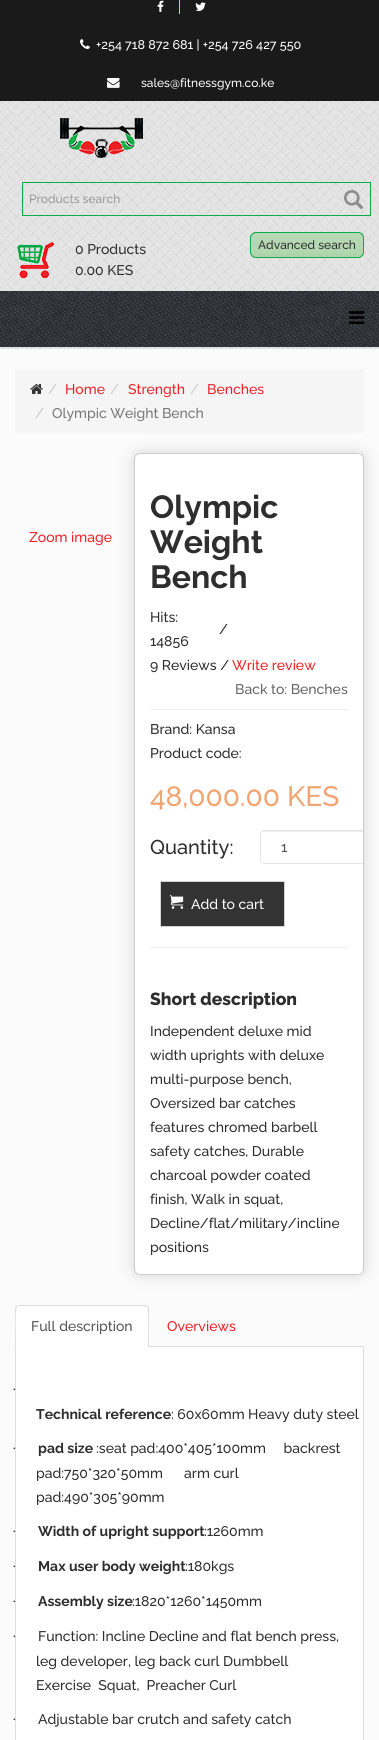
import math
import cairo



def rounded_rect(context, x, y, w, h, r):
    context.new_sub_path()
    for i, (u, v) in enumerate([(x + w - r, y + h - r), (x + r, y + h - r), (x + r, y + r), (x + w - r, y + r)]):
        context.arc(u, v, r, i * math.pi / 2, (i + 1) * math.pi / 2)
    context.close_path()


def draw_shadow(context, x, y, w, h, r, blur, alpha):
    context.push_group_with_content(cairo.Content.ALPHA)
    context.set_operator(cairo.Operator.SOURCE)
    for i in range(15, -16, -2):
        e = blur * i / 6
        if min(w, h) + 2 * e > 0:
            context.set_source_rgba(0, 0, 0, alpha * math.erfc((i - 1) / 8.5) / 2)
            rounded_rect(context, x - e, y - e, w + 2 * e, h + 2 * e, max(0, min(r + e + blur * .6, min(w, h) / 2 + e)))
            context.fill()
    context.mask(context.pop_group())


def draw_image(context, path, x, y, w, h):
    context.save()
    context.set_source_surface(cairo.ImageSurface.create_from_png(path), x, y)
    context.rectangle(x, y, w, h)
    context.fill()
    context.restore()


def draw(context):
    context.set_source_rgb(251 / 255, 251 / 255, 251 / 255)
    context.paint()
    context.set_source_rgb(26 / 255, 26 / 255, 26 / 255)
    context.rectangle(0, 0, 379, 101)
    context.fill()
    context.set_source_rgb(174 / 255, 212 / 255, 171 / 255)
    context.rectangle(179, 0, 1, 14)
    context.fill()
    draw_image(context, "images/1.png", 157, 0, 7, 12)
    draw_image(context, "images/2.png", 195, 2, 11, 9)
    draw_image(context, "images/3.png", 80, 39, 10, 10)
    draw_image(context, "images/4.png", 107, 78, 13, 10)
    draw_image(context, "images/5.png", 0, 101, 379, 189)
    draw_image(context, "images/6.png", 60, 118, 83, 40)
    draw_image(context, "images/7.png", 344, 190, 19, 19)
    context.rectangle(22.5, 182.5, 348, 33)
    context.set_source_rgb(13 / 255, 169 / 255, 74 / 255)
    context.set_line_width(1)
    context.stroke()
    context.set_source_rgb(174 / 255, 212 / 255, 171 / 255)
    rounded_rect(context, 250, 232, 114, 26, 6)
    context.fill()
    draw_image(context, "images/8.png", 250, 233, 114, 20)
    rounded_rect(context, 250.5, 232.5, 113, 25, 5.5)
    context.set_source_rgb(13 / 255, 169 / 255, 74 / 255)
    context.stroke()
    draw_image(context, "images/9.png", 17, 242, 37, 36)
    draw_image(context, "images/10.png", 0, 291, 379, 56)
    context.set_source_rgb(225 / 255, 225 / 255, 225 / 255)
    context.rectangle(0, 290, 379, 1)
    context.fill()
    context.rectangle(0, 347, 379, 2)
    context.fill()
    draw_image(context, "images/11.png", 349, 311, 16, 13)
    context.set_source_rgb(245 / 255, 245 / 255, 245 / 255)
    context.rectangle(15, 369, 349, 64)
    context.fill()
    draw_image(context, "images/12.png", 30, 384, 13, 10)
    context.set_source_rgb(214 / 255, 214 / 255, 214 / 255)
    draw_shadow(context, 134, 453, 230, 822, 6, 7.5, 1)
    context.set_source_rgb(1, 1, 1)
    rounded_rect(context, 134.5, 453.5, 229, 821, 5.5)
    context.fill_preserve()
    context.set_source_rgb(204 / 255, 204 / 255, 204 / 255)
    context.stroke()
    context.set_source_rgb(238 / 255, 238 / 255, 238 / 255)
    context.rectangle(150, 709, 198, 1)
    context.fill()
    context.rectangle(150, 947, 198, 1)
    context.fill()
    context.set_source_rgb(236 / 255, 236 / 255, 236 / 255)
    context.new_path()
    context.move_to(264, 831)
    context.curve_to(262, 831, 261, 833, 261, 835)
    context.curve_to(261, 833, 262, 832, 264, 832)
    context.line_to(363, 832)
    context.line_to(363, 831)
    context.close_path()
    context.fill()
    context.set_source_rgb(230 / 255, 230 / 255, 230 / 255)
    context.new_path()
    context.move_to(264, 830)
    context.curve_to(262, 830, 260, 832, 260, 834)
    context.line_to(260, 860)
    context.curve_to(260, 862, 262, 864, 264, 864)
    context.line_to(363, 864)
    context.line_to(363, 863)
    context.line_to(264, 863)
    context.curve_to(262, 863, 261, 862, 261, 860)
    context.line_to(261, 834)
    context.curve_to(261, 832, 262, 831, 264, 831)
    context.line_to(363, 831)
    context.line_to(363, 830)
    context.close_path()
    context.fill()
    context.set_source_rgb(51 / 255, 51 / 255, 51 / 255)
    context.rectangle(160.5, 881.5, 124, 45)
    context.fill_preserve()
    context.set_source_rgb(213 / 255, 213 / 255, 213 / 255)
    context.stroke()
    draw_image(context, "images/13.png", 170, 894, 14, 15)
    context.set_source_rgb(221 / 255, 221 / 255, 221 / 255)
    context.rectangle(149, 1346, 215, 1)
    context.fill()
    context.set_source_rgb(1, 1, 1)
    context.new_path()
    context.move_to(19, 1305)
    context.line_to(145, 1305)
    context.curve_to(147, 1305, 149, 1307, 149, 1309)
    context.line_to(149, 1347)
    context.line_to(15, 1347)
    context.line_to(15, 1309)
    context.curve_to(15, 1307, 17, 1305, 19, 1305)
    context.close_path()
    context.fill()
    context.set_source_rgb(221 / 255, 221 / 255, 221 / 255)
    context.new_path()
    context.move_to(19, 1305)
    context.line_to(16, 1306)
    context.line_to(17, 1307)
    context.line_to(19, 1306)
    context.line_to(145, 1306)
    context.line_to(147, 1307)
    context.line_to(148, 1306)
    context.line_to(145, 1305)
    context.close_path()
    context.fill()
    context.new_path()
    context.move_to(149, 1347)
    context.line_to(149, 1309)
    context.curve_to(149, 1308, 148, 1307, 148, 1306)
    context.line_to(147, 1307)
    context.curve_to(149, 1309, 148, 1341, 148, 1346)
    context.close_path()
    context.fill()
    context.new_path()
    context.move_to(15, 1347)
    context.line_to(16, 1346)
    context.curve_to(16, 1341, 15, 1309, 17, 1307)
    context.line_to(16, 1306)
    context.line_to(15, 1309)
    context.close_path()
    context.fill()
    context.set_source_rgb(1, 1, 1)
    context.rectangle(16, 1347, 347, 393)
    context.fill()
    context.set_source_rgb(221 / 255, 221 / 255, 221 / 255)
    context.rectangle(363, 1347, 1, 393)
    context.fill()
    context.rectangle(15, 1347, 1, 393)
    context.fill()
    context.select_font_face("Raleway Medium")
    context.set_font_size(12.6)
    context.set_source_rgb(1, 1, 1)
    context.move_to(96, 49)
    context.show_text("+254 718 872 681 | +254 726 427 550")
    context.set_font_size(12)
    context.move_to(141, 87)
    context.show_text("sales@fitnessgym.co.ke")
    context.set_source_rgb(153 / 255, 153 / 255, 153 / 255)
    context.move_to(29, 203)
    context.show_text("Products search")
    context.set_source_rgb(46 / 255, 46 / 255, 46 / 255)
    context.move_to(258, 249)
    context.show_text("Advanced search")
    context.set_font_size(14)
    context.move_to(75, 254)
    context.show_text("0 Products")
    context.move_to(75, 275)
    context.show_text("0.00 KES")
    context.set_source_rgb(204 / 255, 204 / 255, 204 / 255)
    context.move_to(48, 394)
    context.show_text("/")
    context.set_source_rgb(237 / 255, 34 / 255, 39 / 255)
    context.move_to(65, 394)
    context.show_text("Home")
    context.set_source_rgb(204 / 255, 204 / 255, 204 / 255)
    context.move_to(110, 394)
    context.show_text("/")
    context.set_source_rgb(237 / 255, 34 / 255, 39 / 255)
    context.move_to(128, 394)
    context.show_text("Strength")
    context.set_source_rgb(204 / 255, 204 / 255, 204 / 255)
    context.move_to(190, 394)
    context.show_text("/")
    context.set_source_rgb(237 / 255, 34 / 255, 39 / 255)
    context.move_to(207, 394)
    context.show_text("Benches")
    context.set_source_rgb(204 / 255, 204 / 255, 204 / 255)
    context.move_to(35, 418)
    context.show_text("/")
    context.set_source_rgb(119 / 255, 119 / 255, 119 / 255)
    context.move_to(52, 418)
    context.show_text("Olympic Weight Bench")
    context.set_source_rgb(237 / 255, 34 / 255, 39 / 255)
    context.move_to(29, 542)
    context.show_text("Zoom image")
    context.select_font_face("Raleway", cairo.FontSlant.NORMAL, cairo.FontWeight.BOLD)
    context.set_font_size(32)
    context.set_source_rgb(46 / 255, 46 / 255, 46 / 255)
    context.move_to(150, 518)
    context.show_text("Olympic")
    context.move_to(150, 553)
    context.show_text("Weight")
    context.move_to(150, 588)
    context.show_text("Bench")
    context.select_font_face("Raleway Medium")
    context.set_font_size(14)
    context.move_to(150, 622)
    context.show_text("Hits:")
    context.move_to(150, 646)
    context.show_text("14856")
    context.move_to(219, 634)
    context.show_text("/")
    context.move_to(150, 670)
    context.show_text("9 Reviews /")
    context.set_source_rgb(237 / 255, 34 / 255, 39 / 255)
    context.move_to(232, 670)
    context.show_text("Write review")
    context.set_source_rgb(102 / 255, 102 / 255, 102 / 255)
    context.move_to(235, 694)
    context.show_text("Back to: Benches")
    context.set_source_rgb(46 / 255, 46 / 255, 46 / 255)
    context.move_to(150, 734)
    context.show_text("Brand: Kansa")
    context.move_to(150, 758)
    context.show_text("Product code:")
    context.set_font_size(28)
    context.set_source_rgb(243 / 255, 164 / 255, 115 / 255)
    context.move_to(150, 806)
    context.show_text("48,000.00 KES")
    context.set_font_size(20)
    context.set_source_rgb(46 / 255, 46 / 255, 46 / 255)
    context.move_to(150, 854)
    context.show_text("Quantity:")
    context.set_font_size(14)
    context.set_source_rgb(85 / 255, 85 / 255, 85 / 255)
    context.move_to(281, 852)
    context.show_text("1")
    context.set_source_rgb(1, 1, 1)
    context.move_to(191, 909)
    context.show_text("Add to cart")
    context.select_font_face("Raleway ExtraBold")
    context.set_font_size(17.5)
    context.set_source_rgb(46 / 255, 46 / 255, 46 / 255)
    context.move_to(150, 1005)
    context.show_text("Short description")
    context.select_font_face("Raleway Medium")
    context.set_font_size(14)
    context.move_to(150, 1036)
    context.show_text("Independent deluxe mid")
    context.move_to(150, 1060)
    context.show_text("width uprights with deluxe")
    context.move_to(150, 1084)
    context.show_text("multi-purpose bench,")
    context.move_to(150, 1108)
    context.show_text("Oversized bar catches")
    context.move_to(150, 1132)
    context.show_text("features chromed barbell")
    context.move_to(150, 1156)
    context.show_text("safety catches, Durable")
    context.move_to(150, 1180)
    context.show_text("charcoal powder coated")
    context.move_to(150, 1204)
    context.show_text("finish, Walk in squat,")
    context.move_to(150, 1228)
    context.show_text("Decline/flat/military/incline")
    context.move_to(150, 1252)
    context.show_text("positions")
    context.set_source_rgb(85 / 255, 85 / 255, 85 / 255)
    context.move_to(31, 1331)
    context.show_text("Full description")
    context.set_source_rgb(237 / 255, 34 / 255, 39 / 255)
    context.move_to(167, 1331)
    context.show_text("Overviews")
    context.select_font_face("Liberation Serif")
    context.set_source_rgb(46 / 255, 46 / 255, 46 / 255)
    context.move_to(12, 1394)
    context.show_text("·")
    context.select_font_face("Raleway", cairo.FontSlant.NORMAL, cairo.FontWeight.BOLD)
    context.move_to(36, 1419)
    context.show_text("Technical reference")
    context.select_font_face("Raleway Medium")
    context.move_to(171, 1419)
    context.show_text(": 60x60mm Heavy duty steel")
    context.select_font_face("Liberation Serif")
    context.move_to(12, 1453)
    context.show_text("·")
    context.select_font_face("Raleway", cairo.FontSlant.NORMAL, cairo.FontWeight.BOLD)
    context.move_to(38, 1453)
    context.show_text("pad size")
    context.select_font_face("Raleway Medium")
    context.move_to(96, 1453)
    context.show_text(":seat pad:400*405*100mm     backrest")
    context.move_to(36, 1478)
    context.show_text("pad:750*320*50mm      arm curl")
    context.move_to(36, 1502)
    context.show_text("pad:490*305*90mm")
    context.select_font_face("Liberation Serif")
    context.move_to(12, 1536)
    context.show_text("·")
    context.select_font_face("Raleway", cairo.FontSlant.NORMAL, cairo.FontWeight.BOLD)
    context.move_to(38, 1536)
    context.show_text("Width of upright support")
    context.select_font_face("Raleway Medium")
    context.move_to(204, 1536)
    context.show_text(":1260mm")
    context.select_font_face("Liberation Serif")
    context.move_to(12, 1571)
    context.show_text("·")
    context.select_font_face("Raleway", cairo.FontSlant.NORMAL, cairo.FontWeight.BOLD)
    context.move_to(38, 1571)
    context.show_text("Max user body weight")
    context.select_font_face("Raleway Medium")
    context.move_to(185, 1571)
    context.show_text(":180kgs")
    context.select_font_face("Liberation Serif")
    context.move_to(12, 1606)
    context.show_text("·")
    context.select_font_face("Raleway", cairo.FontSlant.NORMAL, cairo.FontWeight.BOLD)
    context.move_to(38, 1606)
    context.show_text("Assembly size")
    context.select_font_face("Raleway Medium")
    context.move_to(132, 1606)
    context.show_text(":1820*1260*1450mm")
    context.select_font_face("Liberation Serif")
    context.move_to(12, 1641)
    context.show_text("·")
    context.select_font_face("Raleway Medium")
    context.move_to(38, 1641)
    context.show_text("Function: Incline Decline and flat bench press,")
    context.move_to(36, 1666)
    context.show_text("leg developer, leg back curl Dumbbell")
    context.move_to(36, 1690)
    context.show_text("Exercise  Squat,  Preacher Curl")
    context.select_font_face("Liberation Serif")
    context.move_to(12, 1724)
    context.show_text("·")
    context.select_font_face("Raleway Medium")
    context.move_to(38, 1724)
    context.show_text("Adjustable bar crutch and safety catch")


surface = cairo.ImageSurface(cairo.Format.RGB24, 379, 1740)
context = cairo.Context(surface)
options = cairo.FontOptions()
options.set_hint_metrics(cairo.HintMetrics.OFF)
options.set_hint_style(cairo.HintStyle.NONE)
context.set_font_options(options)
context.set_miter_limit(4)
draw(context)
surface.write_to_png("out.png")
